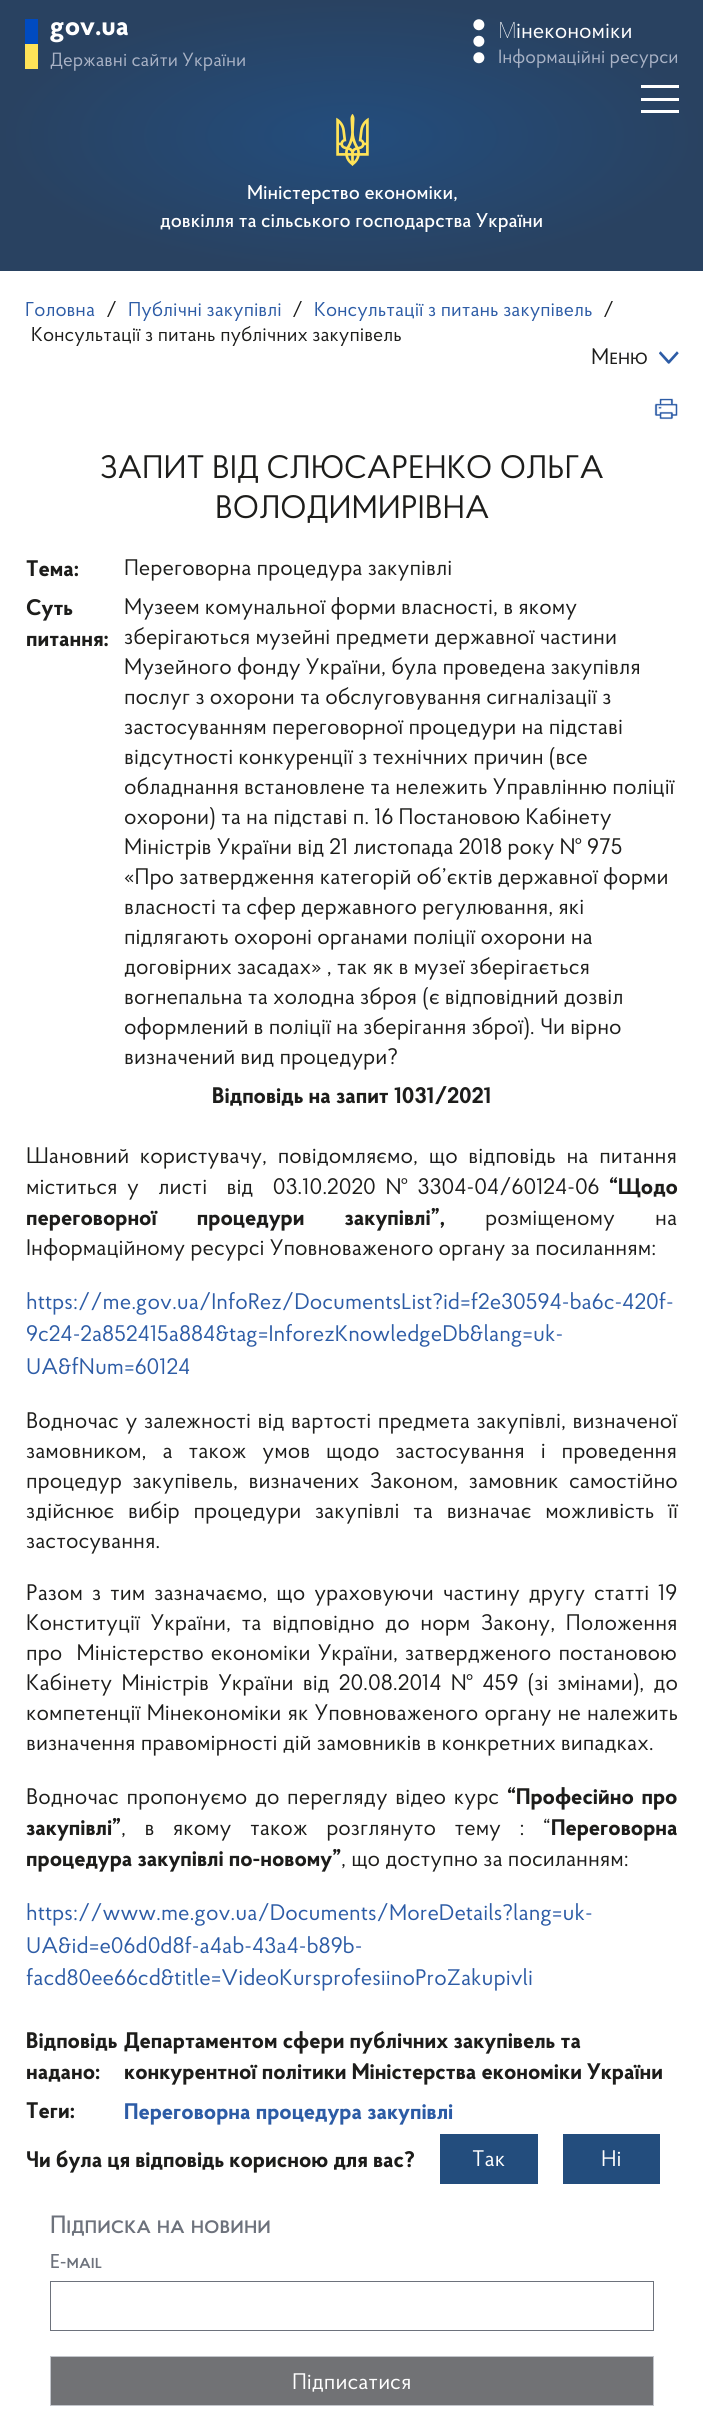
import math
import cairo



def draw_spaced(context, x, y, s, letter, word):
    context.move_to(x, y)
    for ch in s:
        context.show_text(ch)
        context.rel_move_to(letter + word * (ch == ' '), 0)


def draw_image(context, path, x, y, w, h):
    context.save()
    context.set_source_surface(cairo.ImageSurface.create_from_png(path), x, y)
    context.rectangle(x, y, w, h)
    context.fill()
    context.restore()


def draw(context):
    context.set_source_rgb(1, 1, 1)
    context.paint()
    gradient = cairo.RadialGradient(0, 0, 0, 0, 0, 1)
    gradient.set_matrix(cairo.Matrix(1 / 352, 0, 0, 1 / 136, -1 * 352 / 352, -1 * 136 / 136))
    gradient.add_color_stop_rgba(0, 35 / 255, 77 / 255, 125 / 255, 1)
    gradient.add_color_stop_rgba(1, 41 / 255, 66 / 255, 97 / 255, 1)
    context.set_source(gradient)
    context.rectangle(0, 0, 703, 271)
    context.fill()
    context.set_source_rgb(0, 75 / 255, 193 / 255)
    context.rectangle(25, 19, 13, 25)
    context.fill()
    context.set_source_rgb(1, 227 / 255, 88 / 255)
    context.rectangle(25, 44, 13, 25)
    context.fill()
    draw_image(context, "images/1.png", 473, 19, 12, 45)
    context.set_source_rgb(1, 1, 1)
    context.rectangle(641, 85, 38, 3)
    context.fill()
    context.rectangle(641, 98, 38, 3)
    context.fill()
    context.rectangle(641, 110, 38, 3)
    context.fill()
    draw_image(context, "images/2.png", 336, 114, 33, 52)
    draw_image(context, "images/3.png", 659, 351, 20, 13)
    draw_image(context, "images/4.png", 654, 398, 24, 22)
    context.set_source_rgb(35 / 255, 77 / 255, 125 / 255)
    context.rectangle(440, 2134, 98, 50)
    context.fill()
    context.rectangle(563, 2134, 97, 50)
    context.fill()
    context.rectangle(50.5, 2281.5, 603, 49)
    context.set_source_rgb(109 / 255, 114 / 255, 124 / 255)
    context.set_line_width(1)
    context.stroke()
    context.set_source_rgb(113 / 255, 114 / 255, 117 / 255)
    context.rectangle(50.5, 2356.5, 603, 49)
    context.fill_preserve()
    context.set_source_rgb(194 / 255, 197 / 255, 203 / 255)
    context.stroke()
    context.select_font_face("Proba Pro", cairo.FontSlant.NORMAL, cairo.FontWeight.BOLD)
    context.set_font_size(28)
    context.set_source_rgb(1, 1, 1)
    context.move_to(50, 35)
    context.show_text("gov.ua")
    context.select_font_face("Proba Pro")
    context.set_font_size(19.1)
    context.set_source_rgb(170 / 255, 179 / 255, 198 / 255)
    context.move_to(50, 66)
    context.show_text("Державні сайти України")
    context.select_font_face("Noto Sans Thin")
    context.set_font_size(22.5)
    context.set_source_rgb(1, 1, 1)
    context.move_to(498, 38)
    context.show_text("М")
    context.select_font_face("Proba Pro")
    context.move_to(516, 38)
    context.show_text("інекономіки")
    context.set_font_size(19.1)
    context.set_source_rgb(170 / 255, 179 / 255, 198 / 255)
    context.move_to(498, 63)
    context.show_text("Інформаційні ресурси")
    context.select_font_face("Proba Pro Medium")
    context.set_font_size(20)
    context.set_source_rgb(1, 1, 1)
    context.move_to(247, 199)
    context.show_text("Міністерство економіки,")
    context.move_to(160, 227)
    context.show_text("довкілля та сільського господарства України")
    context.select_font_face("Proba Pro")
    context.set_source_rgb(45 / 255, 92 / 255, 166 / 255)
    context.move_to(25, 316)
    context.show_text("Головна")
    context.set_source_rgb(29 / 255, 29 / 255, 27 / 255)
    context.move_to(106, 316)
    context.show_text("/")
    context.set_source_rgb(45 / 255, 92 / 255, 166 / 255)
    context.move_to(128, 316)
    context.show_text("Публічні закупівлі")
    context.set_source_rgb(29 / 255, 29 / 255, 27 / 255)
    context.move_to(292, 316)
    context.show_text("/")
    context.set_source_rgb(45 / 255, 92 / 255, 166 / 255)
    context.move_to(314, 316)
    context.show_text("Консультації з питань закупівель")
    context.set_source_rgb(29 / 255, 29 / 255, 27 / 255)
    context.move_to(603, 316)
    context.show_text("/")
    context.move_to(31, 341)
    context.show_text("Консультації з питань публічних закупівель")
    context.select_font_face("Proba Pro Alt")
    context.set_font_size(22.5)
    context.move_to(591, 364)
    context.show_text("Меню")
    context.select_font_face("Proba Pro")
    context.set_font_size(32.5)
    context.move_to(100, 478)
    context.show_text("ЗАПИТ ВІД СЛЮСАРЕНКО ОЛЬГА")
    context.move_to(215, 518)
    context.show_text("ВОЛОДИМИРІВНА")
    context.select_font_face("Proba Pro", cairo.FontSlant.NORMAL, cairo.FontWeight.BOLD)
    context.set_font_size(22.5)
    context.move_to(26, 576)
    context.show_text("Тема:")
    context.select_font_face("Proba Pro")
    context.move_to(124, 575)
    context.show_text("Переговорна процедура закупівлі")
    context.select_font_face("Proba Pro", cairo.FontSlant.NORMAL, cairo.FontWeight.BOLD)
    context.move_to(26, 615)
    context.show_text("Суть")
    context.move_to(26, 646)
    context.show_text("питання:")
    context.select_font_face("Proba Pro")
    context.move_to(124, 614)
    context.show_text("Музеем комунальної форми власності, в якому")
    context.move_to(124, 644)
    context.show_text("зберігаються музейні предмети державної частини")
    context.move_to(124, 674)
    context.show_text("Музейного фонду України, була проведена закупівля")
    context.move_to(124, 704)
    context.show_text("послуг з охорони та обслуговування сигналізації з")
    context.move_to(124, 734)
    context.show_text("застосуванням переговорної процедури на підставі")
    context.move_to(124, 764)
    context.show_text("відсутності конкуренції з технічних причин (все")
    context.move_to(124, 794)
    context.show_text("обладнання встановлене та нележить Управлінню поліції")
    context.move_to(124, 824)
    context.show_text("охорони) та на підставі п. 16 Постановою Кабінету")
    context.move_to(124, 854)
    context.show_text("Міністрів України від 21 листопада 2018 року № 975")
    context.move_to(124, 884)
    context.show_text("«Про затвердження категорій об’єктів державної форми")
    context.move_to(124, 914)
    context.show_text("власності та сфер державного регулювання, які")
    context.move_to(124, 944)
    context.show_text("підлягають охороні органами поліції охорони на")
    context.move_to(124, 974)
    context.show_text("договірних засадах» , так як в музеї зберігається")
    context.move_to(124, 1004)
    context.show_text("вогнепальна та холодна зброя (є відповідний дозвіл")
    context.move_to(124, 1034)
    context.show_text("оформлений в поліції на зберігання зброї). Чи вірно")
    context.move_to(124, 1064)
    context.show_text("визначений вид процедури?")
    context.select_font_face("Proba Pro", cairo.FontSlant.NORMAL, cairo.FontWeight.BOLD)
    context.move_to(212, 1103)
    context.show_text("Відповідь на запит 1031/2021")
    context.select_font_face("Proba Pro")
    draw_spaced(context, 26, 1163, "Шановний користувачу, повідомляємо, що відповідь на питання", 0, 5.5)
    draw_spaced(context, 26, 1194, "міститься у  листі  від  03.10.2020 № 3304-04/60124-06", 0, 4.5)
    context.select_font_face("Proba Pro", cairo.FontSlant.NORMAL, cairo.FontWeight.BOLD)
    context.move_to(609, 1194)
    context.show_text("“Щодо")
    draw_spaced(context, 26, 1225, "переговорної процедури закупівлі”,", 0, 35)
    context.select_font_face("Proba Pro")
    draw_spaced(context, 485, 1225, "розміщеному на", 0, 35)
    context.move_to(26, 1255)
    context.show_text("Інформаційному ресурсі Уповноваженого органу за посиланням:")
    context.set_source_rgb(45 / 255, 92 / 255, 166 / 255)
    context.move_to(26, 1309)
    context.show_text("https://me.gov.ua/InfoRez/DocumentsList?id=f2e30594-ba6c-420f-")
    context.move_to(26, 1341)
    context.show_text("9c24-2a852415a884&tag=InforezKnowledgeDb&lang=uk-")
    context.move_to(26, 1374)
    context.show_text("UA&fNum=60124")
    context.set_source_rgb(29 / 255, 29 / 255, 27 / 255)
    draw_spaced(context, 26, 1428, "Водночас у залежності від вартості предмета закупівлі, визначеної", 0, 1.5)
    draw_spaced(context, 26, 1458, "замовником, а також умов щодо застосування і проведення", 0, 10.75)
    draw_spaced(context, 26, 1488, "процедур закупівель, визначених Законом, замовник самостійно", 0, 5.5)
    draw_spaced(context, 26, 1518, "здійснює вибір процедури закупівлі та визначає можливість її", 0, 8.5)
    context.move_to(26, 1548)
    context.show_text("застосування.")
    draw_spaced(context, 26, 1600, "Разом з тим зазначаємо, що ураховуючи частину другу статті 19", 0, 3.75)
    draw_spaced(context, 26, 1630, "Конституції України, та відповідно до норм Закону, Положення", 0, 5.5)
    draw_spaced(context, 26, 1660, "про  Міністерство економіки України, затвердженого постановою", 0, 2)
    draw_spaced(context, 26, 1690, "Кабінету Міністрів України від 20.08.2014 № 459 (зі змінами), до", 0, 4)
    draw_spaced(context, 26, 1720, "компетенції Мінекономіки як Уповноваженого органу не належить", 0, 1)
    context.move_to(26, 1750)
    context.show_text("визначення правомірності дій замовників в конкретних випадках.")
    draw_spaced(context, 26, 1804, "Водночас пропонуємо до перегляду відео курс", 0, 2.5)
    context.select_font_face("Proba Pro", cairo.FontSlant.NORMAL, cairo.FontWeight.BOLD)
    draw_spaced(context, 507, 1804, "“Професійно про", 0, 2.5)
    context.move_to(26, 1835)
    context.show_text("закупівлі”")
    context.select_font_face("Proba Pro")
    draw_spaced(context, 121, 1835, ", в якому також розглянуто тему : “", 0, 13.25)
    context.select_font_face("Proba Pro", cairo.FontSlant.NORMAL, cairo.FontWeight.BOLD)
    context.move_to(551, 1835)
    context.show_text("Переговорна")
    context.move_to(26, 1866)
    context.show_text("процедура закупівлі по-новому”")
    context.select_font_face("Proba Pro")
    context.move_to(341, 1866)
    context.show_text(", що доступно за посиланням:")
    context.set_source_rgb(45 / 255, 92 / 255, 166 / 255)
    context.move_to(26, 1920)
    context.show_text("https://www.me.gov.ua/Documents/MoreDetails?lang=uk-")
    context.move_to(26, 1953)
    context.show_text("UA&id=e06d0d8f-a4ab-43a4-b89b-")
    context.move_to(26, 1985)
    context.show_text("facd80ee66cd&title=VideoKursprofesiinoProZakupivli")
    context.select_font_face("Proba Pro", cairo.FontSlant.NORMAL, cairo.FontWeight.BOLD)
    context.set_source_rgb(29 / 255, 29 / 255, 27 / 255)
    context.move_to(26, 2048)
    context.show_text("Відповідь")
    context.move_to(26, 2079)
    context.show_text("надано:")
    context.move_to(124, 2048)
    context.show_text("Департаментом сфери публічних закупівель та")
    context.move_to(124, 2079)
    context.show_text("конкурентної політики Міністерства економіки України")
    context.move_to(26, 2118)
    context.show_text("Теги:")
    context.set_source_rgb(45 / 255, 92 / 255, 166 / 255)
    context.move_to(124, 2119)
    context.show_text("Переговорна процедура закупівлі")
    context.set_source_rgb(29 / 255, 29 / 255, 27 / 255)
    context.move_to(26, 2167)
    context.show_text("Чи була ця відповідь корисною для вас?")
    context.select_font_face("Proba Pro")
    context.set_source_rgb(1, 1, 1)
    context.move_to(472, 2166)
    context.show_text("Так")
    context.move_to(601, 2166)
    context.show_text("Ні")
    context.select_font_face("Proba Pro Alt Medium")
    context.set_font_size(25)
    context.set_source_rgb(109 / 255, 114 / 255, 124 / 255)
    context.move_to(50, 2233)
    context.show_text("Підписка на новини")
    context.set_font_size(20)
    context.move_to(50, 2268)
    context.show_text("E-mail")
    context.select_font_face("Proba Pro")
    context.set_font_size(22.5)
    context.set_source_rgb(1, 1, 1)
    context.move_to(292, 2389)
    context.show_text("Пiдписатися")


surface = cairo.ImageSurface(cairo.Format.RGB24, 703, 2416)
context = cairo.Context(surface)
options = cairo.FontOptions()
options.set_hint_metrics(cairo.HintMetrics.OFF)
options.set_hint_style(cairo.HintStyle.NONE)
context.set_font_options(options)
context.set_miter_limit(4)
draw(context)
surface.write_to_png("out.png")
